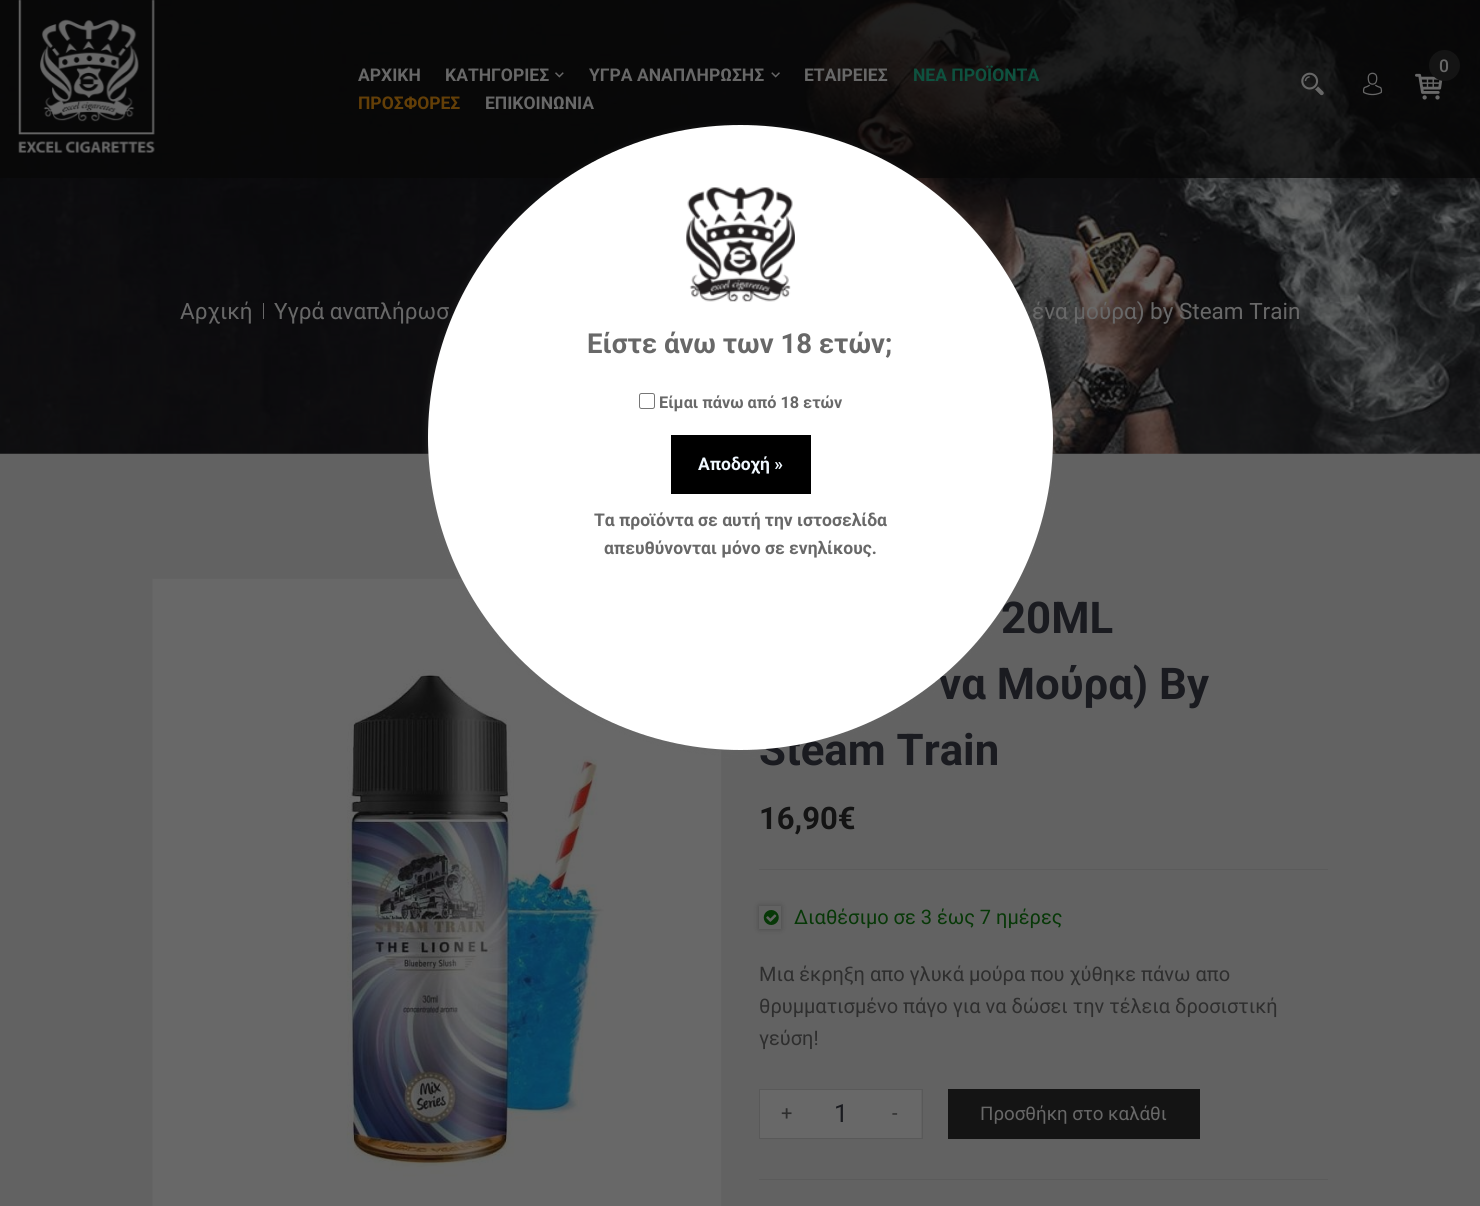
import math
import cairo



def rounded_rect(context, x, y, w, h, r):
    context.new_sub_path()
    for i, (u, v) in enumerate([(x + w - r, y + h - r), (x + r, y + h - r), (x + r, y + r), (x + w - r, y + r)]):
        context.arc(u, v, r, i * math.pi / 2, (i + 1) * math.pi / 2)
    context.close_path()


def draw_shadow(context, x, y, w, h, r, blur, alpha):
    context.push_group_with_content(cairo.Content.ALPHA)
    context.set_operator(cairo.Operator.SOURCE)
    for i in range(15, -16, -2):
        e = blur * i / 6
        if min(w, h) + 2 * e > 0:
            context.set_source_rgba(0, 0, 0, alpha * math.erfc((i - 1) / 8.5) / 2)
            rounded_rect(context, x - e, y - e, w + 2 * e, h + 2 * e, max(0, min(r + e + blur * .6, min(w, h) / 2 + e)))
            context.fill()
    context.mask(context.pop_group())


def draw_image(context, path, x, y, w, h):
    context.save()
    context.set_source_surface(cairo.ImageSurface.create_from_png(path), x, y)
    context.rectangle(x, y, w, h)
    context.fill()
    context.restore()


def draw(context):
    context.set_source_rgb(98 / 255, 98 / 255, 98 / 255)
    context.paint()
    draw_image(context, "images/7.png", 0, 0, 1480, 454)
    context.set_source_rgba(7 / 255, 7 / 255, 7 / 255, 0.74)
    context.rectangle(0, 0, 1480, 178)
    context.fill()
    draw_image(context, "images/1.png", 18, 0, 137, 153)
    draw_image(context, "images/2.png", 555, 72, 9, 6)
    draw_image(context, "images/3.png", 771, 72, 9, 6)
    draw_image(context, "images/4.png", 1415, 73, 28, 27)
    context.set_source_rgb(20 / 255, 20 / 255, 20 / 255)
    context.arc(1444.5, 65.5, 15.5, 0, 2 * math.pi)
    context.fill()
    draw_image(context, "images/5.png", 1301, 72, 23, 24)
    draw_image(context, "images/6.png", 1362, 72, 21, 24)
    context.set_source_rgb(104 / 255, 104 / 255, 104 / 255)
    context.rectangle(263, 303, 1, 16)
    context.fill()
    draw_image(context, "images/8.png", 152, 578, 570, 628)
    context.set_source_rgb(91 / 255, 91 / 255, 91 / 255)
    context.rectangle(759, 869, 569, 1)
    context.fill()
    context.save()
    context.set_fill_rule(cairo.FillRule.EVEN_ODD)
    context.new_path()
    context.move_to(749, 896)
    context.line_to(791, 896)
    context.line_to(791, 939)
    context.line_to(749, 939)
    context.close_path()
    context.move_to(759, 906)
    context.line_to(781, 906)
    context.line_to(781, 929)
    context.line_to(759, 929)
    context.close_path()
    context.clip()
    context.set_source_rgb(18 / 255, 18 / 255, 18 / 255)
    draw_shadow(context, 759, 906, 22, 23, 0, 3, 0.3)
    context.restore()
    draw_image(context, "images/9.png", 763, 910, 16, 15)
    context.rectangle(759, 1179, 569, 1)
    context.fill()
    context.rectangle(759.5, 1089.5, 163, 49)
    context.set_source_rgb(89 / 255, 89 / 255, 89 / 255)
    context.set_line_width(1)
    context.stroke()
    context.set_source_rgb(104 / 255, 104 / 255, 104 / 255)
    context.rectangle(760, 1090, 161, 48)
    context.fill()
    context.set_source_rgb(20 / 255, 20 / 255, 20 / 255)
    context.rectangle(948, 1089, 252, 50)
    context.fill()
    context.set_source_rgb(100 / 255, 100 / 255, 100 / 255)
    draw_shadow(context, 428, 128, 625, 625, 312.5, 4, 0.3)
    context.select_font_face("Roboto", cairo.FontSlant.NORMAL, cairo.FontWeight.BOLD)
    context.set_font_size(17.5)
    context.set_source_rgb(104 / 255, 104 / 255, 104 / 255)
    context.move_to(358, 81)
    context.show_text("ΑΡΧΙΚΗ")
    context.move_to(445, 81)
    context.show_text("ΚΑΤΗΓΟΡΙΕΣ")
    context.move_to(589, 81)
    context.show_text("ΥΓΡΑ ΑΝΑΠΛΗΡΩΣΗΣ")
    context.move_to(804, 81)
    context.show_text("ΕΤΑΙΡΕΙΕΣ")
    context.set_source_rgb(14 / 255, 82 / 255, 63 / 255)
    context.move_to(913, 81)
    context.show_text("ΝΕΑ ΠΡΟΪΟΝΤΑ")
    context.set_source_rgb(100 / 255, 63 / 255, 7 / 255)
    context.move_to(358, 109)
    context.show_text("ΠΡΟΣΦΟΡΕΣ")
    context.set_source_rgb(104 / 255, 104 / 255, 104 / 255)
    context.move_to(485, 109)
    context.show_text("ΕΠΙΚΟΙΝΩΝΙΑ")
    context.select_font_face("Roboto Medium")
    context.move_to(1439, 72)
    context.show_text("0")
    context.select_font_face("Roboto")
    context.set_font_size(22.5)
    context.move_to(180, 319)
    context.show_text("Αρχική")
    context.move_to(274, 319)
    context.show_text("Υγρά αναπλήρωσ")
    context.move_to(1032, 319)
    context.show_text("ένα μούρα) by Steam Train")
    context.select_font_face("Roboto", cairo.FontSlant.NORMAL, cairo.FontWeight.BOLD)
    context.set_font_size(43.75)
    context.set_source_rgb(26 / 255, 27 / 255, 32 / 255)
    context.move_to(1001, 633)
    context.show_text("20ML")
    context.move_to(939, 699)
    context.show_text("να Μούρα) By")
    context.move_to(759, 765)
    context.show_text("Steam Train")
    context.set_font_size(31)
    context.set_source_rgb(20 / 255, 20 / 255, 20 / 255)
    context.move_to(759, 829)
    context.show_text("16,90€")
    context.select_font_face("Roboto")
    context.set_font_size(20)
    context.set_source_rgb(7 / 255, 56 / 255, 7 / 255)
    context.move_to(794, 924)
    context.show_text("Διαθέσιμο σε 3 έως 7 ημέρες")
    context.set_source_rgb(46 / 255, 46 / 255, 46 / 255)
    context.move_to(759, 981)
    context.show_text("Μια έκρηξη απο γλυκά μούρα που χύθηκε πάνω απο")
    context.move_to(759, 1013)
    context.show_text("θρυμματισμένο πάγο για να δώσει την τέλεια δροσιστική")
    context.move_to(759, 1045)
    context.show_text("γεύση!")
    context.move_to(781, 1120)
    context.show_text("+")
    context.set_font_size(25)
    context.set_source_rgb(26 / 255, 27 / 255, 32 / 255)
    context.move_to(834, 1122)
    context.show_text("1")
    context.set_font_size(20)
    context.set_source_rgb(46 / 255, 46 / 255, 46 / 255)
    context.move_to(892, 1120)
    context.show_text("-")
    context.set_font_size(18.75)
    context.set_source_rgb(104 / 255, 104 / 255, 104 / 255)
    context.move_to(980, 1120)
    context.show_text("Προσθήκη στο καλάθι")
    context.set_source_rgb(1, 1, 1)
    context.new_path()
    context.arc(740.5, 437.5, 312.5, 0, 2 * math.pi)
    context.fill()
    draw_image(context, "images/10.png", 686, 187, 109, 115)
    context.select_font_face("Roboto", cairo.FontSlant.NORMAL, cairo.FontWeight.BOLD)
    context.set_font_size(27.5)
    context.set_source_rgb(104 / 255, 104 / 255, 104 / 255)
    context.move_to(587, 353)
    context.show_text("Είστε άνω των 18 ετών;")
    rounded_rect(context, 639.5, 393.5, 15, 15, 2)
    context.set_source_rgb(118 / 255, 118 / 255, 118 / 255)
    context.stroke()
    context.set_font_size(16.25)
    context.set_source_rgb(104 / 255, 104 / 255, 104 / 255)
    context.move_to(659, 408)
    context.show_text("Είμαι πάνω από 18 ετών")
    context.set_source_rgb(0, 0, 0)
    context.rectangle(671, 435, 140, 59)
    context.fill()
    context.set_font_size(17.5)
    context.set_source_rgb(240 / 255, 248 / 255, 1)
    context.move_to(698, 470)
    context.show_text("Αποδοχή »")
    context.set_source_rgb(104 / 255, 104 / 255, 104 / 255)
    context.move_to(594, 526)
    context.show_text("Τα προϊόντα σε αυτή την ιστοσελίδα")
    context.move_to(604, 554)
    context.show_text("απευθύνονται μόνο σε ενηλίκους.")


surface = cairo.ImageSurface(cairo.Format.RGB24, 1480, 1206)
context = cairo.Context(surface)
options = cairo.FontOptions()
options.set_hint_metrics(cairo.HintMetrics.OFF)
options.set_hint_style(cairo.HintStyle.NONE)
context.set_font_options(options)
context.set_miter_limit(4)
draw(context)
surface.write_to_png("out.png")
